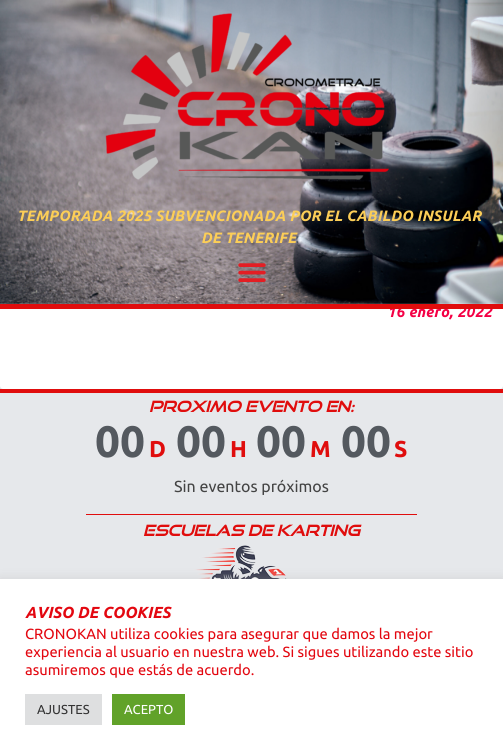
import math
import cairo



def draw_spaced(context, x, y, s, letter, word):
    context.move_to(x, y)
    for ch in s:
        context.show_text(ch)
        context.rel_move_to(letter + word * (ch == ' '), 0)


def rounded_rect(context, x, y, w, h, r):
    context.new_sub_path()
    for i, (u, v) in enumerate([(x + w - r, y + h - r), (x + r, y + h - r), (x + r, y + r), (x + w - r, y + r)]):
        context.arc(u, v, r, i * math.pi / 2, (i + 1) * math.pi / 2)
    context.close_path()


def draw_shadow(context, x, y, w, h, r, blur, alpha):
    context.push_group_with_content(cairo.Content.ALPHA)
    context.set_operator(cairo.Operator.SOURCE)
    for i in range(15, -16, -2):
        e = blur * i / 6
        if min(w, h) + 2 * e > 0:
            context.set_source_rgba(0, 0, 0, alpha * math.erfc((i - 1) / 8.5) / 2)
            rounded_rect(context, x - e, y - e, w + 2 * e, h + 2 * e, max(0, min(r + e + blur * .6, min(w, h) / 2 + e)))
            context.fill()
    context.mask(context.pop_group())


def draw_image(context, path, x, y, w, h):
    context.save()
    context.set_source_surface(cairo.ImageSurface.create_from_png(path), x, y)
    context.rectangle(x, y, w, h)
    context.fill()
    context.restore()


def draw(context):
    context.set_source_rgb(230 / 255, 232 / 255, 235 / 255)
    context.paint()
    context.set_source_rgb(0, 0, 0)
    draw_shadow(context, 0, -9, 503, 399, 3, 2, 0.1)
    context.set_source_rgb(1, 1, 1)
    rounded_rect(context, 0, -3, 503, 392, 3)
    context.fill()
    draw_image(context, "images/1.png", 0, 0, 503, 304)
    draw_image(context, "images/2.png", 105, 13, 284, 167)
    draw_image(context, "images/3.png", 238, 263, 28, 19)
    context.set_source_rgb(224 / 255, 13 / 255, 13 / 255)
    context.rectangle(0, 389, 503, 4)
    context.fill()
    context.rectangle(86, 514, 331, 1)
    context.fill()
    draw_image(context, "images/4.png", 193, 545, 94, 34)
    context.set_source_rgb(172 / 255, 171 / 255, 171 / 255)
    draw_shadow(context, 0, 578, 503, 176, 0, 5, 0.3)
    context.set_source_rgb(1, 1, 1)
    context.rectangle(0, 579, 503, 176)
    context.fill()
    context.set_source_rgb(222 / 255, 223 / 255, 224 / 255)
    context.rectangle(25, 694, 77, 31)
    context.fill()
    context.set_source_rgb(97 / 255, 162 / 255, 41 / 255)
    context.rectangle(112, 694, 73, 31)
    context.fill()
    context.select_font_face("Ubuntu", cairo.FontSlant.ITALIC, cairo.FontWeight.BOLD)
    context.set_font_size(15)
    context.set_source_rgb(252 / 255, 206 / 255, 87 / 255)
    draw_spaced(context, 17, 221, "TEMPORADA 2025 SUBVENCIONADA POR EL CABILDO INSULAR", 0.2, 0)
    draw_spaced(context, 201, 243, "DE TENERIFE", 0.2, 0)
    context.set_source_rgb(244 / 255, 0, 69 / 255)
    draw_spaced(context, 387, 317, "16 enero, 2022", 0.25, 0)
    context.set_source_rgb(224 / 255, 13 / 255, 13 / 255)
    context.rectangle(0, 304, 503, 5)
    context.fill()
    context.select_font_face("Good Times", cairo.FontSlant.ITALIC, cairo.FontWeight.BOLD)
    context.move_to(149, 412)
    context.show_text("PROXIMO EVENTO EN:")
    context.select_font_face("Ubuntu", cairo.FontSlant.NORMAL, cairo.FontWeight.BOLD)
    context.set_font_size(44)
    context.set_source_rgb(84 / 255, 89 / 255, 95 / 255)
    context.move_to(95, 457)
    context.show_text("00")
    context.set_font_size(23)
    context.set_source_rgb(224 / 255, 13 / 255, 13 / 255)
    context.move_to(149, 457)
    context.show_text("D")
    context.set_font_size(44)
    context.set_source_rgb(84 / 255, 89 / 255, 95 / 255)
    context.move_to(176, 457)
    context.show_text("00")
    context.set_font_size(23)
    context.set_source_rgb(224 / 255, 13 / 255, 13 / 255)
    context.move_to(230, 457)
    context.show_text("H")
    context.set_font_size(44)
    context.set_source_rgb(84 / 255, 89 / 255, 95 / 255)
    context.move_to(256, 457)
    context.show_text("00")
    context.set_font_size(23)
    context.set_source_rgb(224 / 255, 13 / 255, 13 / 255)
    context.move_to(310, 457)
    context.show_text("M")
    context.set_font_size(44)
    context.set_source_rgb(84 / 255, 89 / 255, 95 / 255)
    context.move_to(341, 457)
    context.show_text("00")
    context.set_font_size(23)
    context.set_source_rgb(224 / 255, 13 / 255, 13 / 255)
    context.move_to(394, 457)
    context.show_text("S")
    context.select_font_face("Ubuntu")
    context.set_font_size(16)
    context.set_source_rgb(68 / 255, 68 / 255, 68 / 255)
    context.move_to(174, 492)
    context.show_text("Sin eventos próximos")
    context.select_font_face("Good Times", cairo.FontSlant.ITALIC, cairo.FontWeight.BOLD)
    context.set_font_size(15)
    context.set_source_rgb(224 / 255, 13 / 255, 13 / 255)
    context.move_to(143, 536)
    context.show_text("ESCUELAS DE KARTING")
    context.select_font_face("Ubuntu", cairo.FontSlant.ITALIC, cairo.FontWeight.BOLD)
    context.set_font_size(16)
    context.set_source_rgb(227 / 255, 7 / 255, 16 / 255)
    context.move_to(25, 618)
    context.show_text("AVISO DE COOKIES")
    context.select_font_face("Ubuntu")
    context.set_font_size(14.7)
    context.move_to(25, 639)
    context.show_text("CRONOKAN utiliza cookies para asegurar que damos la mejor")
    context.move_to(25, 657)
    context.show_text("experiencia al usuario en nuestra web. Si sigues utilizando este sitio")
    context.move_to(25, 675)
    context.show_text("asumiremos que estás de acuerdo.")
    context.set_font_size(13)
    context.set_source_rgb(51 / 255, 51 / 255, 51 / 255)
    context.move_to(37, 714)
    context.show_text("AJUSTES")
    context.set_source_rgb(1, 1, 1)
    context.move_to(124, 714)
    context.show_text("ACEPTO")


surface = cairo.ImageSurface(cairo.Format.RGB24, 503, 755)
context = cairo.Context(surface)
options = cairo.FontOptions()
options.set_hint_metrics(cairo.HintMetrics.OFF)
options.set_hint_style(cairo.HintStyle.NONE)
context.set_font_options(options)
context.set_miter_limit(4)
draw(context)
surface.write_to_png("out.png")
